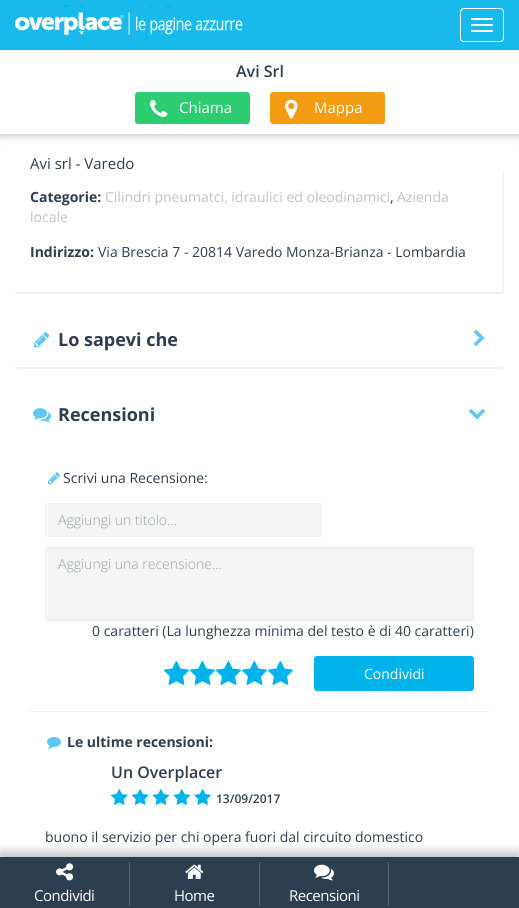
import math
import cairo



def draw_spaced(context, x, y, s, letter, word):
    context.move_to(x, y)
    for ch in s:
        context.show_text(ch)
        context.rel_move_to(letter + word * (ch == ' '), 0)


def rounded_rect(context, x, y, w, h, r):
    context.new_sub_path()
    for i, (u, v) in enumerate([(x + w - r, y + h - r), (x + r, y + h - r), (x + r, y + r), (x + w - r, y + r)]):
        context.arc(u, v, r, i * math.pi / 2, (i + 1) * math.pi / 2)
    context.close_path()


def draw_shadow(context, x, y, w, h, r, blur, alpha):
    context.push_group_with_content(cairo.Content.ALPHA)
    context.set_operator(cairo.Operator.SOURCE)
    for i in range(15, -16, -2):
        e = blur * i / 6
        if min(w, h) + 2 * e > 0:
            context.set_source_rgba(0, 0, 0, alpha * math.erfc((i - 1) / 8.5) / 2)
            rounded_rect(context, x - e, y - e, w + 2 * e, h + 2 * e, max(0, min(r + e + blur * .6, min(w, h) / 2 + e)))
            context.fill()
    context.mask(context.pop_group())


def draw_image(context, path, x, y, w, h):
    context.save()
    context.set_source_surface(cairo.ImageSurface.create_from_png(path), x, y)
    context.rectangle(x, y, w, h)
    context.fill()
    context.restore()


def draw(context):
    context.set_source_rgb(245 / 255, 245 / 255, 245 / 255)
    context.paint()
    context.set_source_rgb(1, 1, 1)
    context.rectangle(0, 50, 519, 807)
    context.fill()
    context.save()
    context.set_fill_rule(cairo.FillRule.EVEN_ODD)
    context.new_path()
    context.move_to(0, 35)
    context.line_to(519, 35)
    context.line_to(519, 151)
    context.line_to(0, 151)
    context.close_path()
    context.move_to(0, 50)
    context.line_to(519, 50)
    context.line_to(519, 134)
    context.line_to(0, 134)
    context.close_path()
    context.clip()
    context.set_source_rgb(0, 0, 0)
    draw_shadow(context, 0, 51, 519, 84, 0, 5, 0.25)
    context.restore()
    context.set_source_rgba(0, 180 / 255, 235 / 255, 0.9)
    context.rectangle(0, 0, 519, 50)
    context.fill()
    draw_image(context, "images/1.png", 15, 5, 228, 30)
    rounded_rect(context, 460.5, 8.5, 43, 33, 3.5)
    context.set_source_rgb(1, 1, 1)
    context.set_line_width(1)
    context.stroke()
    rounded_rect(context, 471, 18, 22, 2, 1)
    context.fill()
    rounded_rect(context, 471, 24, 22, 2, 1)
    context.fill()
    rounded_rect(context, 471, 30, 22, 2, 1)
    context.fill()
    context.set_source_rgb(46 / 255, 204 / 255, 113 / 255)
    rounded_rect(context, 135, 92, 115, 32, 3)
    context.fill()
    draw_image(context, "images/2.png", 150, 99, 18, 18)
    context.set_source_rgb(243 / 255, 156 / 255, 18 / 255)
    rounded_rect(context, 270, 92, 115, 32, 3)
    context.fill()
    draw_image(context, "images/3.png", 285, 99, 13, 20)
    context.set_source_rgb(238 / 255, 238 / 255, 238 / 255)
    context.new_path()
    context.move_to(15, 289)
    context.curve_to(15, 291, 15, 294, 18, 294)
    context.line_to(501, 294)
    context.curve_to(504, 294, 504, 291, 504, 289)
    context.curve_to(504, 291, 503, 292, 501, 292)
    context.line_to(18, 292)
    context.curve_to(16, 292, 15, 291, 15, 289)
    context.close_path()
    context.fill()
    context.set_source_rgb(1, 1, 1)
    rounded_rect(context, 15, 155, 489, 137, 3)
    context.fill()
    context.set_source_rgb(238 / 255, 238 / 255, 238 / 255)
    context.rectangle(503, 172, 1, 120)
    context.fill()
    context.new_path()
    context.move_to(15, 364)
    context.curve_to(15, 366, 15, 369, 18, 369)
    context.line_to(501, 369)
    context.curve_to(504, 369, 504, 366, 504, 364)
    context.curve_to(504, 366, 503, 367, 501, 367)
    context.line_to(18, 367)
    context.curve_to(16, 367, 15, 366, 15, 364)
    context.close_path()
    context.fill()
    context.set_source_rgb(1, 1, 1)
    rounded_rect(context, 15, 312, 489, 55, 3)
    context.fill()
    draw_image(context, "images/4.png", 34, 332, 16, 16)
    draw_image(context, "images/5.png", 473, 329, 12, 17)
    draw_image(context, "images/6.png", 33, 408, 18, 15)
    draw_image(context, "images/7.png", 469, 409, 16, 11)
    draw_image(context, "images/8.png", 48, 472, 12, 12)
    context.set_source_rgb(245 / 255, 245 / 255, 245 / 255)
    context.new_path()
    context.move_to(48, 503.5)
    context.line_to(320.5, 503.5)
    context.line_to(320.5, 536.5)
    context.line_to(48, 536.5)
    context.curve_to(46.5, 536.5, 45.5, 535.5, 45.5, 534)
    context.line_to(45.5, 506)
    context.curve_to(45.5, 504.5, 46.5, 503.5, 48, 503.5)
    context.close_path()
    context.fill_preserve()
    context.set_source_rgb(238 / 255, 238 / 255, 238 / 255)
    context.stroke()
    context.set_source_rgb(245 / 255, 245 / 255, 245 / 255)
    context.new_path()
    context.move_to(48, 547.5)
    context.line_to(473.5, 547.5)
    context.line_to(473.5, 620.5)
    context.line_to(48, 620.5)
    context.curve_to(46.5, 620.5, 45.5, 619.5, 45.5, 618)
    context.line_to(45.5, 550)
    context.curve_to(45.5, 548.5, 46.5, 547.5, 48, 547.5)
    context.close_path()
    context.fill_preserve()
    context.set_source_rgb(238 / 255, 238 / 255, 238 / 255)
    context.stroke()
    draw_image(context, "images/9.png", 164, 661, 25, 24)
    draw_image(context, "images/9.png", 190, 661, 25, 24)
    draw_image(context, "images/9.png", 216, 661, 25, 24)
    draw_image(context, "images/10.png", 242, 661, 25, 24)
    draw_image(context, "images/9.png", 268, 661, 25, 24)
    context.set_source_rgb(0, 180 / 255, 235 / 255)
    rounded_rect(context, 314, 656, 160, 35, 3)
    context.fill()
    context.set_source_rgb(238 / 255, 238 / 255, 238 / 255)
    context.rectangle(30, 711, 459, 1)
    context.fill()
    draw_image(context, "images/11.png", 47, 737, 14, 12)
    draw_image(context, "images/12.png", 111, 789, 100, 16)
    context.set_source_rgb(0, 0, 0)
    draw_shadow(context, 0, 852, 519, 51, 0, 5, 0.25)
    context.set_source_rgb(44 / 255, 62 / 255, 80 / 255)
    context.rectangle(0, 857, 519, 51)
    context.fill()
    context.set_source_rgb(86 / 255, 101 / 255, 115 / 255)
    context.rectangle(129, 862, 1, 44)
    context.fill()
    draw_image(context, "images/13.png", 56, 863, 18, 18)
    context.rectangle(259, 862, 1, 44)
    context.fill()
    draw_image(context, "images/14.png", 185, 864, 19, 15)
    context.rectangle(388, 862, 1, 44)
    context.fill()
    draw_image(context, "images/15.png", 314, 864, 20, 17)
    context.select_font_face("Open Sans SemiBold")
    context.set_font_size(16)
    context.set_source_rgb(44 / 255, 62 / 255, 80 / 255)
    context.move_to(236, 77)
    context.show_text("Avi Srl")
    context.select_font_face("Open Sans")
    context.set_font_size(15)
    context.set_source_rgb(1, 1, 1)
    context.move_to(179, 113)
    context.show_text("Chiama")
    context.move_to(314, 113)
    context.show_text("Mappa")
    context.set_source_rgb(44 / 255, 62 / 255, 80 / 255)
    context.move_to(30, 169)
    context.show_text("Avi srl - Varedo")
    context.select_font_face("Open Sans", cairo.FontSlant.NORMAL, cairo.FontWeight.BOLD)
    context.set_font_size(14)
    context.move_to(30, 202)
    context.show_text("Categorie:")
    context.select_font_face("Open Sans")
    context.set_source_rgb(189 / 255, 195 / 255, 199 / 255)
    context.move_to(105, 202)
    context.show_text("Cilindri pneumatci, idraulici ed oleodinamici")
    context.set_source_rgb(44 / 255, 62 / 255, 80 / 255)
    context.move_to(390, 202)
    context.show_text(",")
    context.set_source_rgb(189 / 255, 195 / 255, 199 / 255)
    context.move_to(397, 202)
    context.show_text("Azienda")
    context.move_to(30, 222)
    context.show_text("locale")
    context.select_font_face("Open Sans", cairo.FontSlant.NORMAL, cairo.FontWeight.BOLD)
    context.set_source_rgb(44 / 255, 62 / 255, 80 / 255)
    context.move_to(30, 257)
    context.show_text("Indirizzo:")
    context.select_font_face("Open Sans")
    context.move_to(98, 257)
    context.show_text("Via Brescia 7 - 20814 Varedo Monza-Brianza - Lombardia")
    context.select_font_face("Open Sans", cairo.FontSlant.NORMAL, cairo.FontWeight.BOLD)
    context.set_font_size(18)
    context.move_to(58, 346)
    context.show_text("Lo sapevi che")
    context.move_to(58, 421)
    context.show_text("Recensioni")
    context.select_font_face("Open Sans")
    context.set_font_size(14)
    context.move_to(63, 483)
    context.show_text("Scrivi una Recensione:")
    context.select_font_face("Open Sans Light")
    context.set_source_rgb(149 / 255, 165 / 255, 166 / 255)
    context.move_to(58, 525)
    context.show_text("Aggiungi un titolo...")
    context.move_to(58, 569)
    context.show_text("Aggiungi una recensione...")
    context.select_font_face("Open Sans")
    context.set_source_rgb(44 / 255, 62 / 255, 80 / 255)
    context.move_to(92, 636)
    context.show_text("0 caratteri (La lunghezza minima del testo è di 40 caratteri)")
    context.set_source_rgb(1, 1, 1)
    context.move_to(364, 679)
    context.show_text("Condividi")
    context.select_font_face("Open Sans", cairo.FontSlant.NORMAL, cairo.FontWeight.BOLD)
    context.set_source_rgb(44 / 255, 62 / 255, 80 / 255)
    context.move_to(67, 747)
    context.show_text("Le ultime recensioni:")
    context.select_font_face("Open Sans SemiBold")
    context.set_font_size(16)
    context.move_to(111, 778)
    context.show_text("Un Overplacer")
    context.set_font_size(12)
    context.move_to(216, 803)
    context.show_text("13/09/2017")
    context.select_font_face("Open Sans")
    context.set_font_size(14)
    context.move_to(45, 842)
    context.show_text("buono il servizio per chi opera fuori dal circuito domestico")
    context.set_font_size(15)
    context.set_source_rgb(1, 1, 1)
    draw_spaced(context, 34, 901, "Condividi", -0.5, 0)
    draw_spaced(context, 174, 901, "Home", -0.5, 0)
    draw_spaced(context, 289, 901, "Recensioni", -0.5, 0)


surface = cairo.ImageSurface(cairo.Format.RGB24, 519, 908)
context = cairo.Context(surface)
options = cairo.FontOptions()
options.set_hint_metrics(cairo.HintMetrics.OFF)
options.set_hint_style(cairo.HintStyle.NONE)
context.set_font_options(options)
context.set_miter_limit(4)
draw(context)
surface.write_to_png("out.png")
